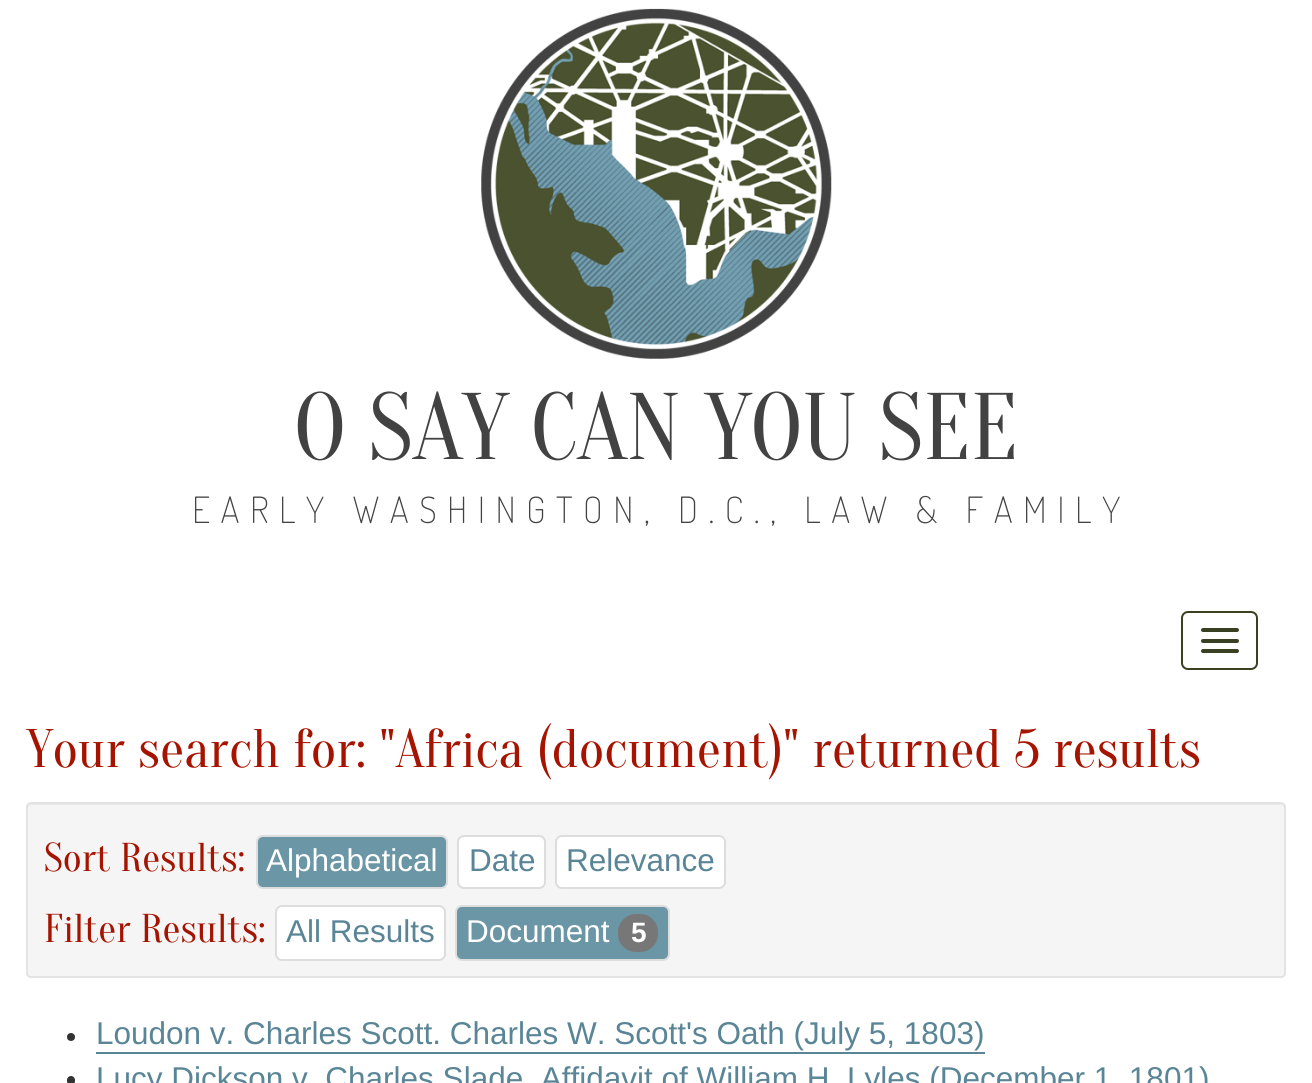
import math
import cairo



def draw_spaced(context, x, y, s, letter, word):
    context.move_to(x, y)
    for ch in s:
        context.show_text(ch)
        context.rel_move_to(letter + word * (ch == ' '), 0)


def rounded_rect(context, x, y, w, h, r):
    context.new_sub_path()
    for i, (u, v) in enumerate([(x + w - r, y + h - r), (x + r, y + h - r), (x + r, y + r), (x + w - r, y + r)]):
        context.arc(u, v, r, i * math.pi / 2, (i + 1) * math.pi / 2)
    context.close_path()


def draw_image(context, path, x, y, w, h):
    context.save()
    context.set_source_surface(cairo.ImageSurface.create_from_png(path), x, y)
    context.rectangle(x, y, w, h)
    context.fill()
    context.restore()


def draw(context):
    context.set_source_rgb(1, 1, 1)
    context.paint()
    draw_image(context, "images/1.png", 481, 8, 351, 351)
    rounded_rect(context, 1182, 612, 75, 57, 6)
    context.set_source_rgb(58 / 255, 65 / 255, 35 / 255)
    context.stroke()
    rounded_rect(context, 1201, 628, 38, 4, 2)
    context.fill()
    rounded_rect(context, 1201, 639, 38, 4, 2)
    context.fill()
    rounded_rect(context, 1201, 649, 38, 4, 2)
    context.fill()
    context.set_source_rgb(245 / 255, 245 / 255, 245 / 255)
    rounded_rect(context, 26, 802, 1260, 176, 5)
    context.fill()
    context.set_source_rgb(233 / 255, 233 / 255, 233 / 255)
    context.new_path()
    context.move_to(32, 805)
    context.line_to(1281, 805)
    context.curve_to(1283, 805, 1284, 807, 1284, 808)
    context.line_to(1284, 976)
    context.curve_to(1285, 975, 1285, 974, 1285, 973)
    context.line_to(1285, 807)
    context.curve_to(1285, 805, 1283, 803, 1281, 803)
    context.line_to(32, 803)
    context.curve_to(30, 803, 28, 805, 28, 807)
    context.line_to(28, 808)
    context.curve_to(28, 807, 30, 805, 32, 805)
    context.close_path()
    context.fill()
    rounded_rect(context, 27, 803, 1258, 174, 4)
    context.set_source_rgb(227 / 255, 227 / 255, 227 / 255)
    context.stroke()
    context.set_source_rgb(107 / 255, 150 / 255, 165 / 255)
    rounded_rect(context, 257, 836, 190, 52, 6)
    context.fill_preserve()
    context.set_source_rgb(221 / 255, 221 / 255, 221 / 255)
    context.stroke()
    context.set_source_rgb(1, 1, 1)
    rounded_rect(context, 458, 836, 87, 52, 6)
    context.fill_preserve()
    context.set_source_rgb(221 / 255, 221 / 255, 221 / 255)
    context.stroke()
    context.set_source_rgb(1, 1, 1)
    rounded_rect(context, 556, 836, 169, 52, 6)
    context.fill_preserve()
    context.set_source_rgb(221 / 255, 221 / 255, 221 / 255)
    context.stroke()
    context.set_source_rgb(1, 1, 1)
    rounded_rect(context, 276, 906, 169, 54, 6)
    context.fill_preserve()
    context.set_source_rgb(221 / 255, 221 / 255, 221 / 255)
    context.stroke()
    context.set_source_rgb(107 / 255, 150 / 255, 165 / 255)
    rounded_rect(context, 456, 906, 213, 54, 6)
    context.fill_preserve()
    context.set_source_rgb(221 / 255, 221 / 255, 221 / 255)
    context.stroke()
    context.set_source_rgb(119 / 255, 119 / 255, 119 / 255)
    rounded_rect(context, 618, 914, 40, 38, 18)
    context.fill()
    context.set_source_rgb(51 / 255, 51 / 255, 51 / 255)
    context.arc(71, 1037, 4, 0, 2 * math.pi)
    context.fill()
    context.set_source_rgb(90 / 255, 133 / 255, 151 / 255)
    context.rectangle(96, 1052, 889, 2)
    context.fill()
    context.set_source_rgb(51 / 255, 51 / 255, 51 / 255)
    rounded_rect(context, 67, 1076, 8, 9, 4)
    context.fill()
    context.select_font_face("Oranienbaum")
    context.set_font_size(94.5)
    context.set_source_rgb(66 / 255, 66 / 255, 66 / 255)
    context.move_to(294, 459)
    context.show_text("O SAY CAN YOU SEE")
    context.select_font_face("Dosis ExtraLight")
    context.set_font_size(36.25)
    draw_spaced(context, 192, 523, "EARLY WASHINGTON, D.C., LAW & FAMILY", 10.5, 0)
    context.select_font_face("Oranienbaum")
    context.set_font_size(54.25)
    context.set_source_rgb(165 / 255, 20 / 255, 0)
    context.move_to(26, 767)
    context.show_text("Your search for: \"Africa (document)\" returned 5 results")
    context.set_font_size(40.25)
    context.move_to(44, 871)
    context.show_text("Sort Results:")
    context.select_font_face("Liberation Sans")
    context.set_font_size(31.5)
    context.set_source_rgb(1, 1, 1)
    context.move_to(266, 871)
    context.show_text("Alphabetical")
    context.set_source_rgb(90 / 255, 133 / 255, 151 / 255)
    context.move_to(469, 871)
    context.show_text("Date")
    context.move_to(566, 871)
    context.show_text("Relevance")
    context.select_font_face("Oranienbaum")
    context.set_font_size(40.25)
    context.set_source_rgb(165 / 255, 20 / 255, 0)
    context.move_to(44, 942)
    context.show_text("Filter Results:")
    context.select_font_face("Liberation Sans")
    context.set_font_size(31.5)
    context.set_source_rgb(90 / 255, 133 / 255, 151 / 255)
    context.move_to(286, 942)
    context.show_text("All Results")
    context.set_source_rgb(1, 1, 1)
    context.move_to(466, 942)
    context.show_text("Document")
    context.select_font_face("Liberation Sans", cairo.FontSlant.NORMAL, cairo.FontWeight.BOLD)
    context.set_font_size(28)
    context.move_to(631, 942)
    context.show_text("5")
    context.select_font_face("Liberation Sans")
    context.set_font_size(31.5)
    context.set_source_rgb(90 / 255, 133 / 255, 151 / 255)
    context.move_to(96, 1044)
    context.show_text("Loudon v. Charles Scott. Charles W. Scott's Oath (July 5, 1803)")
    context.move_to(96, 1089)
    context.show_text("Lucy Dickson v. Charles Slade. Affidavit of William H. Lyles (December 1, 1801)")


surface = cairo.ImageSurface(cairo.Format.RGB24, 1312, 1083)
context = cairo.Context(surface)
options = cairo.FontOptions()
options.set_hint_metrics(cairo.HintMetrics.OFF)
options.set_hint_style(cairo.HintStyle.NONE)
context.set_font_options(options)
context.set_miter_limit(4)
draw(context)
surface.write_to_png("out.png")
